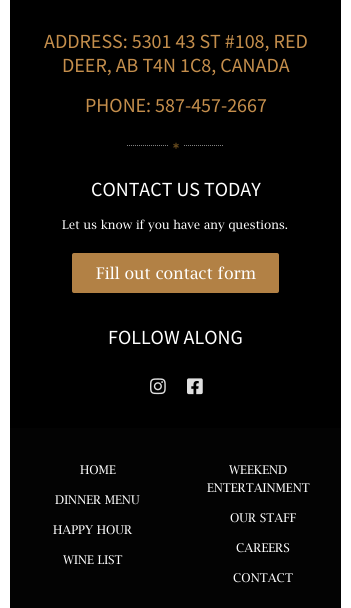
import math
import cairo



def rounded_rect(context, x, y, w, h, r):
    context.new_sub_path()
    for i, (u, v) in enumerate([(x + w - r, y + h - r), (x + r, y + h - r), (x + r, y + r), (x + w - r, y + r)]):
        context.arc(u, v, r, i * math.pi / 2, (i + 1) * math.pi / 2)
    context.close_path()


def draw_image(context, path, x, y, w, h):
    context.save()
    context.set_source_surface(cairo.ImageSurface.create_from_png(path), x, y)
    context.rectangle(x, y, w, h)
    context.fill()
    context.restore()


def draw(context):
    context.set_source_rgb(1, 1, 1)
    context.paint()
    context.set_source_rgb(0, 0, 0)
    context.rectangle(10, 0, 331, 428)
    context.fill()
    context.new_path()
    context.move_to(127, 145.5)
    context.line_to(168, 145.5)
    context.set_source_rgb(130 / 255, 130 / 255, 130 / 255)
    context.set_line_width(1)
    context.set_dash([1, 1])
    context.stroke()
    draw_image(context, "images/1.png", 173, 142, 6, 7)
    context.new_path()
    context.move_to(184, 145.5)
    context.line_to(224, 145.5)
    context.stroke()
    context.set_source_rgb(178 / 255, 129 / 255, 69 / 255)
    rounded_rect(context, 72, 253, 207, 40, 2)
    context.fill()
    draw_image(context, "images/2.png", 150, 378, 16, 17)
    draw_image(context, "images/3.png", 187, 378, 16, 17)
    context.set_source_rgb(3 / 255, 3 / 255, 3 / 255)
    context.rectangle(10, 428, 331, 180)
    context.fill()
    context.select_font_face("Source Sans Pro")
    context.set_font_size(20)
    context.set_source_rgb(196 / 255, 142 / 255, 76 / 255)
    context.move_to(44, 48)
    context.show_text("ADDRESS: 5301 43 ST #108, RED")
    context.move_to(62, 72)
    context.show_text("DEER, AB T4N 1C8, CANADA")
    context.move_to(85, 112)
    context.show_text("PHONE: 587-457-2667")
    context.set_source_rgb(1, 1, 1)
    context.move_to(91, 196)
    context.show_text("CONTACT US TODAY")
    context.select_font_face("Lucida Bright")
    context.set_font_size(12)
    context.move_to(62, 229)
    context.show_text("Let us know if you have any questions.")
    context.set_font_size(16)
    context.move_to(96, 279)
    context.show_text("Fill out contact form")
    context.select_font_face("Source Sans Pro")
    context.set_font_size(20)
    context.move_to(108, 344)
    context.show_text("FOLLOW ALONG")
    context.select_font_face("Lucida Bright")
    context.set_font_size(12)
    context.move_to(80, 474)
    context.show_text("HOME")
    context.move_to(55, 504)
    context.show_text("DINNER MENU")
    context.move_to(53, 534)
    context.show_text("HAPPY HOUR")
    context.move_to(63, 564)
    context.show_text("WINE LIST")
    context.move_to(229, 474)
    context.show_text("WEEKEND")
    context.move_to(207, 492)
    context.show_text("ENTERTAINMENT")
    context.move_to(230, 522)
    context.show_text("OUR STAFF")
    context.move_to(236, 552)
    context.show_text("CAREERS")
    context.move_to(233, 582)
    context.show_text("CONTACT")


surface = cairo.ImageSurface(cairo.Format.RGB24, 351, 608)
context = cairo.Context(surface)
options = cairo.FontOptions()
options.set_hint_metrics(cairo.HintMetrics.OFF)
options.set_hint_style(cairo.HintStyle.NONE)
context.set_font_options(options)
context.set_miter_limit(4)
draw(context)
surface.write_to_png("out.png")
